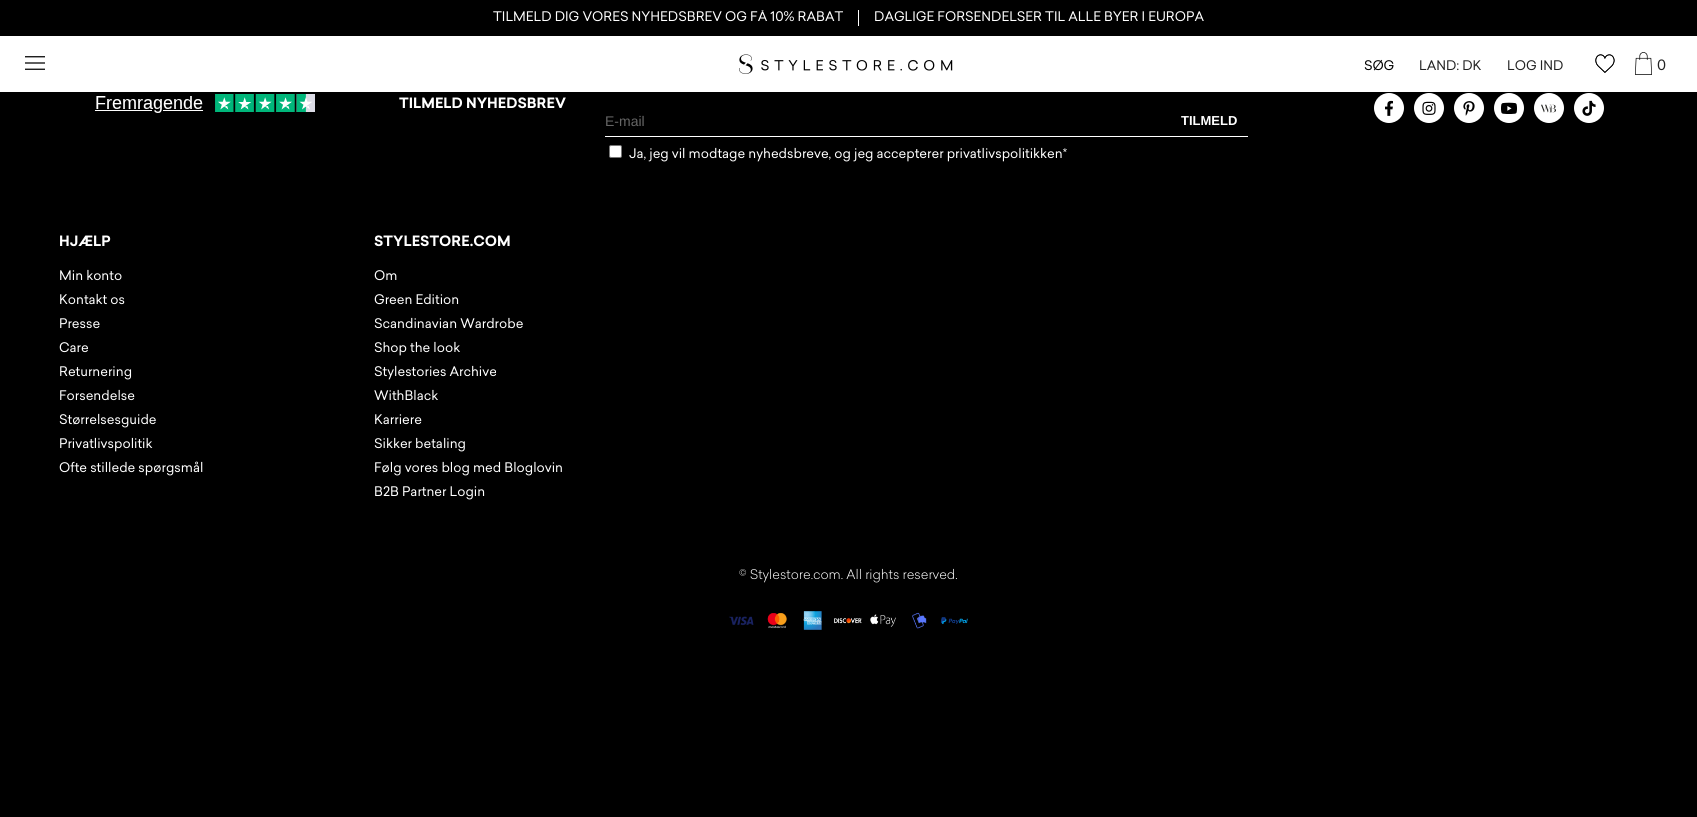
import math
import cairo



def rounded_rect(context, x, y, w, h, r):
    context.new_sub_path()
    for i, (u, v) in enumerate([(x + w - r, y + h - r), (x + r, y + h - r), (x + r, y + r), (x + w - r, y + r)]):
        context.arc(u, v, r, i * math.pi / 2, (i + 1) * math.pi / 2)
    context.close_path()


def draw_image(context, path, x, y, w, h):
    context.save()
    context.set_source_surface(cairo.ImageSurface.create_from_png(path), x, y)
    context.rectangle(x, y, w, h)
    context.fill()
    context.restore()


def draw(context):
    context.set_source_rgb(0, 0, 0)
    context.paint()
    context.set_source_rgb(1, 1, 1)
    context.rectangle(858, 10, 1, 16)
    context.fill()
    context.rectangle(0, 36, 1697, 56)
    context.fill()
    draw_image(context, "images/1.png", 25, 56, 20, 14)
    draw_image(context, "images/2.png", 739, 54, 214, 20)
    draw_image(context, "images/3.png", 1595, 54, 20, 19)
    draw_image(context, "images/4.png", 1595, 54, 20, 19)
    draw_image(context, "images/5.png", 1635, 52, 17, 23)
    draw_image(context, "images/6.png", 94, 94, 221, 19)
    context.rectangle(605, 136, 643, 1)
    context.fill()
    rounded_rect(context, 609.5, 145.5, 12, 12, 1.5)
    context.fill_preserve()
    context.set_source_rgb(118 / 255, 118 / 255, 118 / 255)
    context.set_line_width(1)
    context.stroke()
    context.set_source_rgb(1, 1, 1)
    context.arc(1389, 108, 15, 0, 2 * math.pi)
    context.fill()
    draw_image(context, "images/7.png", 1385, 100, 8, 16)
    context.arc(1429, 108, 15, 0, 2 * math.pi)
    context.fill()
    draw_image(context, "images/8.png", 1422, 101, 14, 14)
    context.arc(1469, 108, 15, 0, 2 * math.pi)
    context.fill()
    draw_image(context, "images/9.png", 1463, 101, 12, 15)
    context.arc(1509, 108, 15, 0, 2 * math.pi)
    context.fill()
    draw_image(context, "images/10.png", 1501, 102, 16, 12)
    context.arc(1549, 108, 15, 0, 2 * math.pi)
    context.fill()
    draw_image(context, "images/11.png", 1541, 104, 15, 9)
    context.arc(1589, 108, 15, 0, 2 * math.pi)
    context.fill()
    draw_image(context, "images/12.png", 1582, 100, 14, 16)
    draw_image(context, "images/13.png", 729, 611, 239, 19)
    context.save()
    context.rectangle(289, 10, 1120, 16)
    context.clip()
    context.select_font_face("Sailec")
    context.set_font_size(13)
    context.move_to(493, 21)
    context.show_text("TILMELD DIG VORES NYHEDSBREV OG FÅ 10% RABAT")
    context.restore()
    context.select_font_face("Sailec")
    context.set_font_size(13)
    context.move_to(874, 21)
    context.show_text("DAGLIGE FORSENDELSER TIL ALLE BYER I EUROPA")
    context.set_source_rgb(0, 0, 0)
    context.move_to(1364, 70)
    context.show_text("SØG")
    context.set_source_rgb(35 / 255, 35 / 255, 35 / 255)
    context.move_to(1419, 70)
    context.show_text("LAND: DK")
    context.move_to(1507, 70)
    context.show_text("LOG IND")
    context.set_font_size(14)
    context.move_to(1657, 70)
    context.show_text("0")
    context.select_font_face("Sailec", cairo.FontSlant.NORMAL, cairo.FontWeight.BOLD)
    context.set_source_rgb(1, 1, 1)
    context.move_to(399, 108)
    context.show_text("TILMELD NYHEDSBREV")
    context.select_font_face("Liberation Sans")
    context.set_source_rgb(102 / 255, 102 / 255, 102 / 255)
    context.move_to(605, 126)
    context.show_text("E-mail")
    context.select_font_face("Sailec")
    context.set_font_size(13)
    context.set_source_rgb(1, 1, 1)
    context.move_to(629, 158)
    context.show_text("Ja, jeg vil modtage nyhedsbreve, og jeg accepterer privatlivspolitikken*")
    context.select_font_face("Liberation Sans", cairo.FontSlant.NORMAL, cairo.FontWeight.BOLD)
    context.move_to(1181, 125)
    context.show_text("TILMELD")
    context.select_font_face("Sailec", cairo.FontSlant.NORMAL, cairo.FontWeight.BOLD)
    context.set_font_size(14)
    context.move_to(59, 246)
    context.show_text("HJÆLP")
    context.select_font_face("Sailec")
    context.set_font_size(13)
    context.move_to(59, 280)
    context.show_text("Min konto")
    context.move_to(59, 304)
    context.show_text("Kontakt os")
    context.move_to(59, 328)
    context.show_text("Presse")
    context.move_to(59, 352)
    context.show_text("Care")
    context.move_to(59, 376)
    context.show_text("Returnering")
    context.move_to(59, 400)
    context.show_text("Forsendelse")
    context.move_to(59, 424)
    context.show_text("Størrelsesguide")
    context.move_to(59, 448)
    context.show_text("Privatlivspolitik")
    context.move_to(59, 472)
    context.show_text("Ofte stillede spørgsmål")
    context.select_font_face("Sailec", cairo.FontSlant.NORMAL, cairo.FontWeight.BOLD)
    context.set_font_size(14)
    context.move_to(374, 246)
    context.show_text("STYLESTORE.COM")
    context.select_font_face("Sailec")
    context.set_font_size(13)
    context.move_to(374, 280)
    context.show_text("Om")
    context.move_to(374, 304)
    context.show_text("Green Edition")
    context.move_to(374, 328)
    context.show_text("Scandinavian Wardrobe")
    context.move_to(374, 352)
    context.show_text("Shop the look")
    context.move_to(374, 376)
    context.show_text("Stylestories Archive")
    context.move_to(374, 400)
    context.show_text("WithBlack")
    context.move_to(374, 424)
    context.show_text("Karriere")
    context.move_to(374, 448)
    context.show_text("Sikker betaling")
    context.move_to(374, 472)
    context.show_text("Følg vores blog med Bloglovin")
    context.move_to(374, 496)
    context.show_text("B2B Partner Login")
    context.select_font_face("Sailec Light")
    context.move_to(739, 579)
    context.show_text("© Stylestore.com. All rights reserved.")


surface = cairo.ImageSurface(cairo.Format.RGB24, 1697, 817)
context = cairo.Context(surface)
options = cairo.FontOptions()
options.set_hint_metrics(cairo.HintMetrics.OFF)
options.set_hint_style(cairo.HintStyle.NONE)
context.set_font_options(options)
context.set_miter_limit(4)
draw(context)
surface.write_to_png("out.png")
